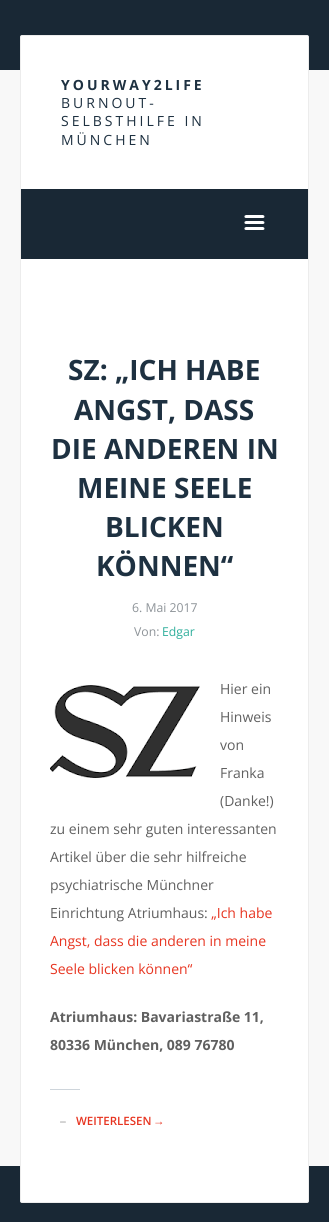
import math
import cairo



def draw_spaced(context, x, y, s, letter, word):
    context.move_to(x, y)
    for ch in s:
        context.show_text(ch)
        context.rel_move_to(letter + word * (ch == ' '), 0)


def rounded_rect(context, x, y, w, h, r):
    context.new_sub_path()
    for i, (u, v) in enumerate([(x + w - r, y + h - r), (x + r, y + h - r), (x + r, y + r), (x + w - r, y + r)]):
        context.arc(u, v, r, i * math.pi / 2, (i + 1) * math.pi / 2)
    context.close_path()


def draw_image(context, path, x, y, w, h):
    context.save()
    context.set_source_surface(cairo.ImageSurface.create_from_png(path), x, y)
    context.rectangle(x, y, w, h)
    context.fill()
    context.restore()


def draw(context):
    context.set_source_rgb(248 / 255, 248 / 255, 248 / 255)
    context.paint()
    context.set_source_rgb(25 / 255, 40 / 255, 53 / 255)
    context.rectangle(0, 0, 329, 70)
    context.fill()
    context.rectangle(0, 1166, 329, 56)
    context.fill()
    context.set_source_rgb(1, 1, 1)
    rounded_rect(context, 20.5, 35.5, 288, 1167, 1.5)
    context.fill_preserve()
    context.set_source_rgb(236 / 255, 236 / 255, 236 / 255)
    context.set_line_width(1)
    context.stroke()
    context.set_source_rgb(25 / 255, 40 / 255, 53 / 255)
    context.rectangle(21, 189, 287, 70)
    context.fill()
    draw_image(context, "images/1.png", 244, 215, 21, 15)
    draw_image(context, "images/2.png", 50, 685, 150, 93)
    context.set_source_rgb(206 / 255, 213 / 255, 219 / 255)
    context.rectangle(50, 1089, 30, 1)
    context.fill()
    draw_image(context, "images/3.png", 60, 1121, 6, 2)
    context.select_font_face("Open Sans", cairo.FontSlant.NORMAL, cairo.FontWeight.BOLD)
    context.set_font_size(14)
    context.set_source_rgb(30 / 255, 49 / 255, 65 / 255)
    draw_spaced(context, 61, 90, "YOURWAY2LIFE", 3, 0)
    context.select_font_face("Open Sans")
    draw_spaced(context, 61, 108, "BURNOUT-", 3, 0)
    draw_spaced(context, 61, 126, "SELBSTHILFE IN", 3, 0)
    draw_spaced(context, 61, 145, "MÜNCHEN", 3, 0)
    context.select_font_face("Open Sans", cairo.FontSlant.NORMAL, cairo.FontWeight.BOLD)
    context.set_font_size(28)
    context.move_to(68, 380)
    context.show_text("SZ: „ICH HABE")
    context.move_to(74, 420)
    context.show_text("ANGST, DASS")
    context.move_to(51, 459)
    context.show_text("DIE ANDEREN IN")
    context.move_to(77, 498)
    context.show_text("MEINE SEELE")
    context.move_to(105, 537)
    context.show_text("BLICKEN")
    context.move_to(96, 576)
    context.show_text("KÖNNEN“")
    context.select_font_face("Open Sans")
    context.set_font_size(12.25)
    context.set_source_rgb(141 / 255, 147 / 255, 152 / 255)
    context.move_to(132, 612)
    context.show_text("6. Mai 2017")
    context.move_to(134, 636)
    context.show_text("Von:")
    context.set_source_rgb(46 / 255, 174 / 255, 155 / 255)
    context.move_to(162, 636)
    context.show_text("Edgar")
    context.set_font_size(14)
    context.set_source_rgb(96 / 255, 96 / 255, 96 / 255)
    context.move_to(220, 694)
    context.show_text("Hier ein")
    context.move_to(220, 722)
    context.show_text("Hinweis")
    context.move_to(220, 750)
    context.show_text("von")
    context.move_to(220, 778)
    context.show_text("Franka")
    context.move_to(220, 806)
    context.show_text("(Danke!)")
    context.move_to(50, 834)
    context.show_text("zu einem sehr guten interessanten")
    context.move_to(50, 862)
    context.show_text("Artikel über die sehr hilfreiche")
    context.move_to(50, 890)
    context.show_text("psychiatrische Münchner")
    context.move_to(50, 918)
    context.show_text("Einrichtung Atriumhaus:")
    context.set_source_rgb(231 / 255, 52 / 255, 32 / 255)
    context.move_to(211, 918)
    context.show_text("„Ich habe")
    context.move_to(50, 946)
    context.show_text("Angst, dass die anderen in meine")
    context.move_to(50, 974)
    context.show_text("Seele blicken können“")
    context.select_font_face("Open Sans", cairo.FontSlant.NORMAL, cairo.FontWeight.BOLD)
    context.set_source_rgb(96 / 255, 96 / 255, 96 / 255)
    context.move_to(50, 1022)
    context.show_text("Atriumhaus: Bavariastraße 11,")
    context.move_to(50, 1050)
    context.show_text("80336 München, 089 76780")
    context.select_font_face("Open Sans SemiBold")
    context.set_font_size(11.5)
    context.set_source_rgb(231 / 255, 52 / 255, 32 / 255)
    context.move_to(76, 1125)
    context.show_text("WEITERLESEN")
    context.select_font_face("Liberation Sans", cairo.FontSlant.NORMAL, cairo.FontWeight.BOLD)
    context.move_to(153, 1125)
    context.show_text("→")


surface = cairo.ImageSurface(cairo.Format.RGB24, 329, 1222)
context = cairo.Context(surface)
options = cairo.FontOptions()
options.set_hint_metrics(cairo.HintMetrics.OFF)
options.set_hint_style(cairo.HintStyle.NONE)
context.set_font_options(options)
context.set_miter_limit(4)
draw(context)
surface.write_to_png("out.png")
